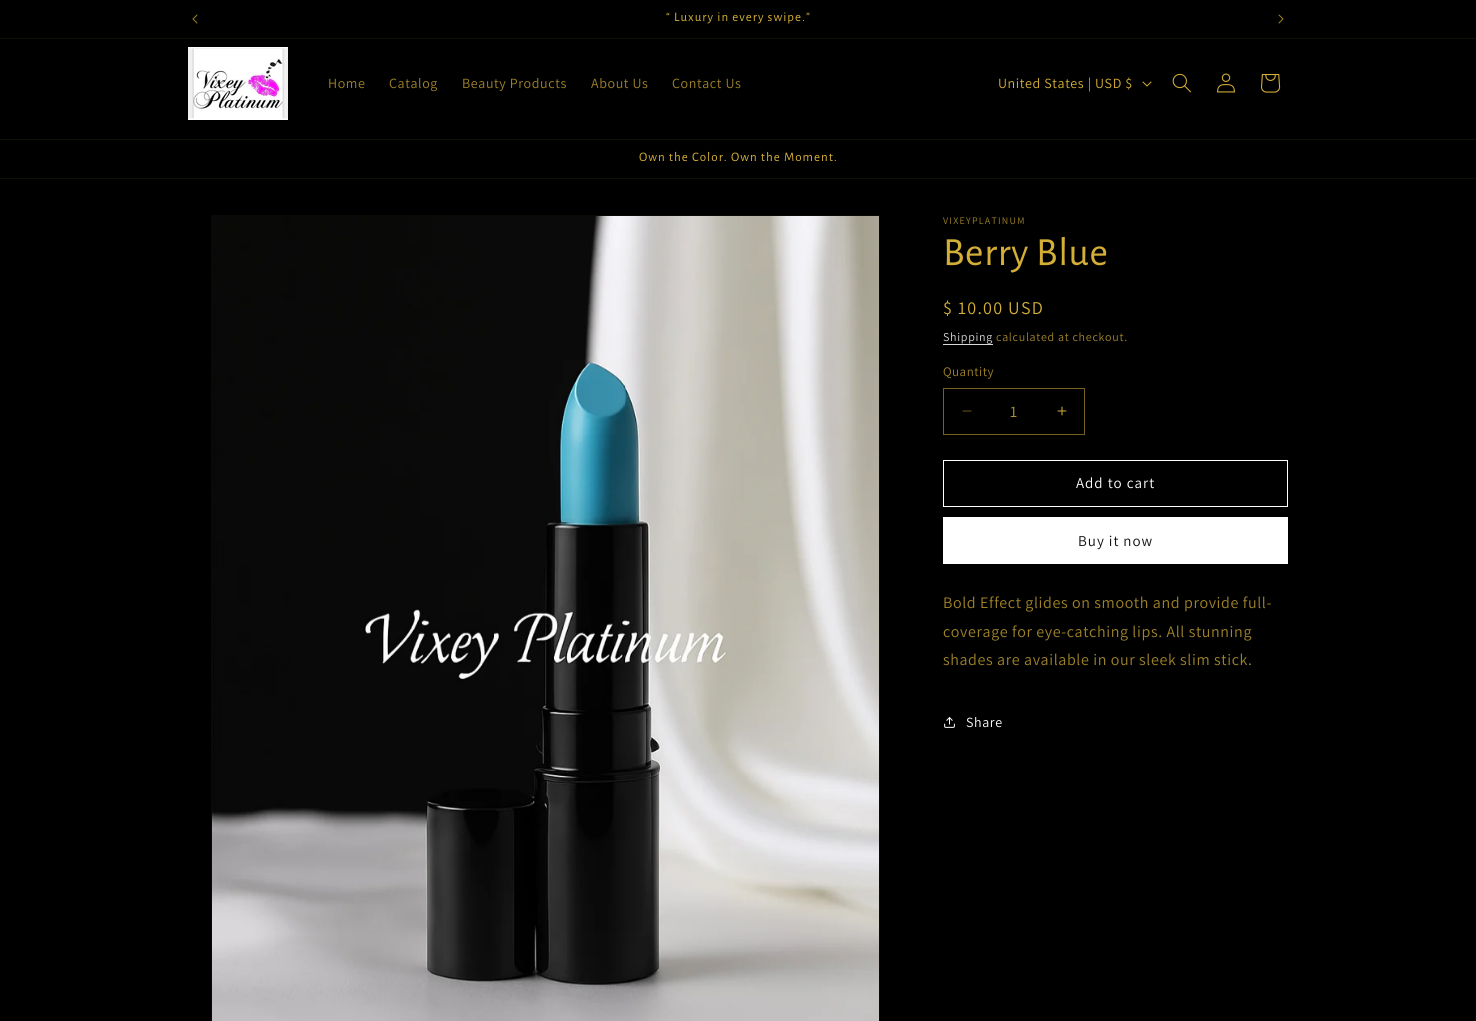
import math
import cairo



def draw_spaced(context, x, y, s, letter, word):
    context.move_to(x, y)
    for ch in s:
        context.show_text(ch)
        context.rel_move_to(letter + word * (ch == ' '), 0)


def draw_image(context, path, x, y, w, h):
    context.save()
    context.set_source_surface(cairo.ImageSurface.create_from_png(path), x, y)
    context.rectangle(x, y, w, h)
    context.fill()
    context.restore()


def draw(context):
    context.set_source_rgb(0, 0, 0)
    context.paint()
    context.set_source_rgb(17 / 255, 14 / 255, 4 / 255)
    context.rectangle(0, 38, 1476, 1)
    context.fill()
    draw_image(context, "images/1.png", 192, 14, 6, 10)
    draw_image(context, "images/2.png", 1278, 14, 6, 10)
    context.rectangle(0, 139, 1476, 1)
    context.fill()
    draw_image(context, "images/3.png", 188, 47, 100, 73)
    draw_image(context, "images/4.png", 1142, 81, 10, 6)
    draw_image(context, "images/5.png", 1172, 73, 19, 20)
    draw_image(context, "images/6.png", 1217, 73, 18, 20)
    draw_image(context, "images/7.png", 1261, 74, 20, 19)
    context.rectangle(0, 178, 1476, 1)
    context.fill()
    context.rectangle(211.5, 215.5, 668, 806)
    context.set_source_rgb(11 / 255, 9 / 255, 3 / 255)
    context.set_line_width(1)
    context.stroke()
    draw_image(context, "images/8.png", 212, 216, 667, 805)
    context.set_source_rgb(217 / 255, 217 / 255, 217 / 255)
    context.rectangle(943, 344, 50, 1)
    context.fill()
    draw_image(context, "images/9.png", 962, 410, 10, 2)
    draw_image(context, "images/10.png", 1057, 406, 10, 10)
    context.rectangle(943.5, 388.5, 141, 46)
    context.set_source_rgb(117 / 255, 96 / 255, 30 / 255)
    context.stroke()
    context.rectangle(943.5, 460.5, 344, 46)
    context.set_source_rgb(1, 1, 1)
    context.stroke()
    context.rectangle(943, 517, 345, 47)
    context.fill()
    draw_image(context, "images/11.png", 944, 717, 11, 11)
    context.select_font_face("Alegreya Sans")
    context.set_font_size(13)
    context.set_source_rgb(212 / 255, 175 / 255, 55 / 255)
    draw_spaced(context, 666, 21, "“ Luxury in every swipe.”", 1, 0)
    context.select_font_face("Assistant")
    context.set_font_size(14)
    context.set_source_rgb(159 / 255, 131 / 255, 41 / 255)
    draw_spaced(context, 328, 88, "Home", 0.6, 0)
    draw_spaced(context, 389, 88, "Catalog", 0.6, 0)
    draw_spaced(context, 462, 88, "Beauty Products", 0.6, 0)
    draw_spaced(context, 591, 88, "About Us", 0.6, 0)
    draw_spaced(context, 672, 88, "Contact Us", 0.6, 0)
    context.set_source_rgb(212 / 255, 175 / 255, 55 / 255)
    draw_spaced(context, 998, 88, "United States | USD $", 0.6, 0)
    context.select_font_face("Alegreya Sans")
    context.set_font_size(13)
    draw_spaced(context, 639, 161, "Own the Color. Own the Moment.", 1, 0)
    context.select_font_face("Assistant")
    context.set_font_size(10)
    context.set_source_rgb(159 / 255, 131 / 255, 41 / 255)
    draw_spaced(context, 943, 224, "VIXEYPLATINUM", 1.25, 0)
    context.select_font_face("Alegreya Sans")
    context.set_font_size(40)
    context.set_source_rgb(212 / 255, 175 / 255, 55 / 255)
    draw_spaced(context, 943, 265, "Berry Blue", 0.6, 0)
    context.select_font_face("Assistant")
    context.set_font_size(18)
    draw_spaced(context, 943, 314, "$ 10.00 USD", 1.25, 0)
    context.set_font_size(12)
    context.set_source_rgb(217 / 255, 217 / 255, 217 / 255)
    draw_spaced(context, 943, 341, "Shipping", 0.7, 0)
    context.set_source_rgb(159 / 255, 131 / 255, 41 / 255)
    draw_spaced(context, 996, 341, "calculated at checkout.", 0.7, 0)
    context.set_font_size(13)
    draw_spaced(context, 943, 376, "Quantity", 0.5, 0)
    context.set_font_size(16)
    context.set_source_rgb(180 / 255, 149 / 255, 47 / 255)
    context.move_to(1010, 417)
    context.show_text("1")
    context.set_font_size(15)
    context.set_source_rgb(1, 1, 1)
    draw_spaced(context, 1076, 488, "Add to cart", 1, 0)
    context.set_source_rgb(18 / 255, 18 / 255, 18 / 255)
    draw_spaced(context, 1078, 546, "Buy it now", 1, 0)
    context.set_font_size(16)
    context.set_source_rgb(159 / 255, 131 / 255, 41 / 255)
    draw_spaced(context, 943, 608, "Bold Effect glides on smooth and provide full-", 0.6, 0)
    draw_spaced(context, 943, 637, "coverage for eye-catching lips. All stunning", 0.6, 0)
    draw_spaced(context, 943, 665, "shades are available in our sleek slim stick.", 0.6, 0)
    context.set_font_size(14)
    context.set_source_rgb(1, 1, 1)
    draw_spaced(context, 966, 727, "Share", 0.6, 0)


surface = cairo.ImageSurface(cairo.Format.RGB24, 1476, 1021)
context = cairo.Context(surface)
options = cairo.FontOptions()
options.set_hint_metrics(cairo.HintMetrics.OFF)
options.set_hint_style(cairo.HintStyle.NONE)
context.set_font_options(options)
context.set_miter_limit(4)
draw(context)
surface.write_to_png("out.png")
